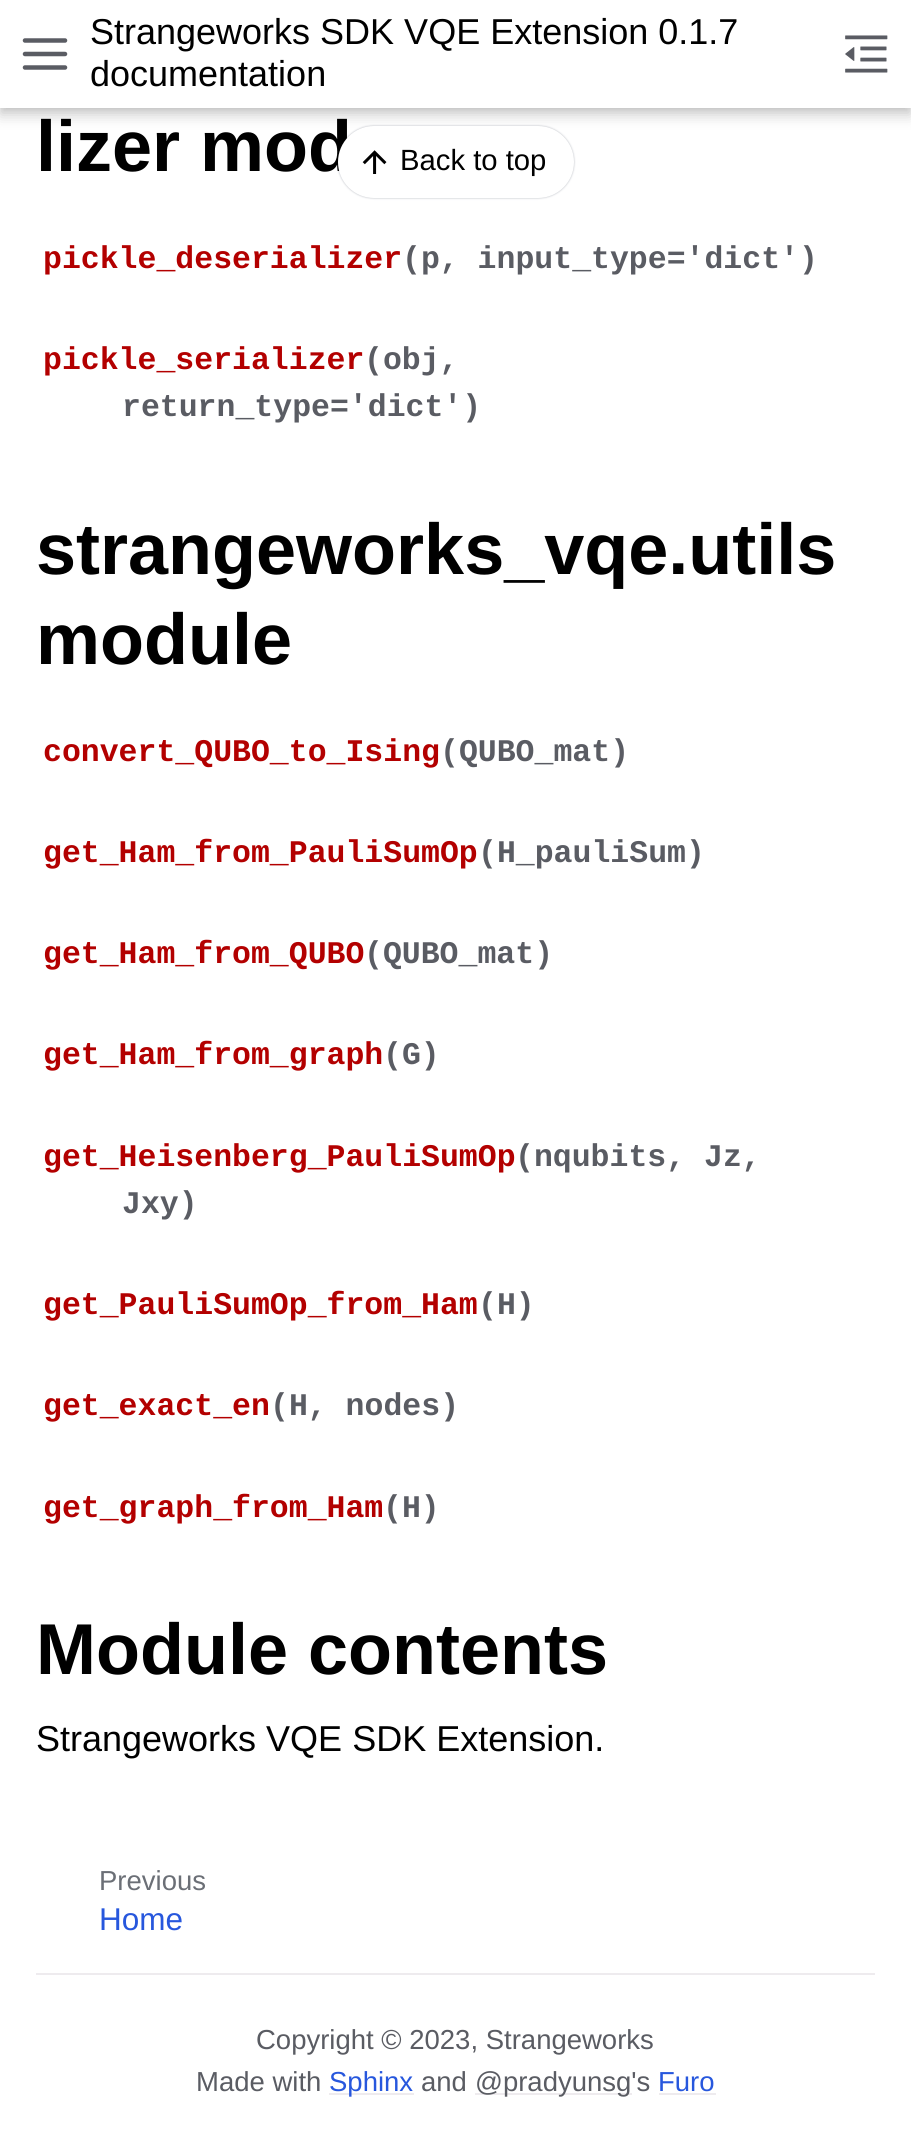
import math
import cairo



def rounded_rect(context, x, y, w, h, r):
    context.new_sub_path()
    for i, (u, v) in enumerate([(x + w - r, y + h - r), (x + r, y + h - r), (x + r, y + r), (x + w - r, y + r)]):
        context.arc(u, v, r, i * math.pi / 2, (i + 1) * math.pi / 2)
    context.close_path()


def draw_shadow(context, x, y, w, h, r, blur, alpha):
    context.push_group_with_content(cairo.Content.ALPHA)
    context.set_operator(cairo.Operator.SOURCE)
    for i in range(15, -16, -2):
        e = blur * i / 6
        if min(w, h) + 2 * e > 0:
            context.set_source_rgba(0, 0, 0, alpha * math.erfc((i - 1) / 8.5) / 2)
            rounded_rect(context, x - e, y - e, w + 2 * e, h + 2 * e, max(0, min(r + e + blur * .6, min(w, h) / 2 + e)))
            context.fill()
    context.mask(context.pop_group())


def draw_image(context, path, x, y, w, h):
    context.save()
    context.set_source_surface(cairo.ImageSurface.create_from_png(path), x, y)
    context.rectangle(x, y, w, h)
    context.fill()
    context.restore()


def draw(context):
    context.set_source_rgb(1, 1, 1)
    context.paint()
    context.set_source_rgb(0, 0, 0)
    draw_shadow(context, 0, 7, 911, 108, 0, 7, 0.2)
    draw_shadow(context, 0, 0, 911, 108, 0, 3.5, 0.1)
    context.set_source_rgb(1, 1, 1)
    context.rectangle(0, 0, 911, 108)
    context.fill()
    context.new_path()
    context.move_to(25, 54)
    context.line_to(65, 54)
    context.move_to(25, 40.5)
    context.line_to(65, 40.5)
    context.move_to(25, 67.5)
    context.line_to(65, 67.5)
    context.set_source_rgb(90 / 255, 92 / 255, 99 / 255)
    context.set_line_width(4.5)
    context.set_line_cap(cairo.LineCap.ROUND)
    context.set_line_join(cairo.LineJoin.ROUND)
    context.stroke()
    draw_image(context, "images/1.png", 845, 35, 43, 38)
    context.set_source_rgb(107 / 255, 114 / 255, 128 / 255)
    draw_shadow(context, 338, 126, 236, 72, 36, 1, 0.5)
    context.set_source_rgb(238 / 255, 235 / 255, 238 / 255)
    context.rectangle(36, 1973, 839, 2)
    context.fill()
    context.rectangle(329, 2093, 85, 2)
    context.fill()
    context.rectangle(475, 2093, 157, 2)
    context.fill()
    context.rectangle(659, 2093, 57, 2)
    context.fill()
    context.select_font_face("Liberation Sans")
    context.set_font_size(36)
    context.set_source_rgb(0, 0, 0)
    context.move_to(90, 44)
    context.show_text("Strangeworks SDK VQE Extension 0.1.7")
    context.move_to(90, 86)
    context.show_text("documentation")
    context.select_font_face("Liberation Sans", cairo.FontSlant.NORMAL, cairo.FontWeight.BOLD)
    context.set_font_size(72)
    context.move_to(36, 171)
    context.show_text("lizer mod")
    context.select_font_face("Liberation Mono", cairo.FontSlant.NORMAL, cairo.FontWeight.BOLD)
    context.set_font_size(31.5)
    context.set_source_rgb(179 / 255, 0, 0)
    context.move_to(43, 268)
    context.show_text("pickle_deserializer")
    context.set_source_rgb(90 / 255, 92 / 255, 99 / 255)
    context.move_to(402, 268)
    context.show_text("(p, input_type='dict')")
    context.set_source_rgb(179 / 255, 0, 0)
    context.move_to(43, 369)
    context.show_text("pickle_serializer")
    context.set_source_rgb(90 / 255, 92 / 255, 99 / 255)
    context.move_to(364, 369)
    context.show_text("(obj,")
    context.move_to(122, 416)
    context.show_text("return_type='dict')")
    context.select_font_face("Liberation Sans", cairo.FontSlant.NORMAL, cairo.FontWeight.BOLD)
    context.set_font_size(72)
    context.set_source_rgb(0, 0, 0)
    context.move_to(36, 574)
    context.show_text("strangeworks_vqe.utils")
    context.move_to(36, 664)
    context.show_text("module")
    context.select_font_face("Liberation Mono", cairo.FontSlant.NORMAL, cairo.FontWeight.BOLD)
    context.set_font_size(31.5)
    context.set_source_rgb(179 / 255, 0, 0)
    context.move_to(43, 761)
    context.show_text("convert_QUBO_to_Ising")
    context.set_source_rgb(90 / 255, 92 / 255, 99 / 255)
    context.move_to(440, 761)
    context.show_text("(QUBO_mat)")
    context.set_source_rgb(179 / 255, 0, 0)
    context.move_to(43, 862)
    context.show_text("get_Ham_from_PauliSumOp")
    context.set_source_rgb(90 / 255, 92 / 255, 99 / 255)
    context.move_to(478, 862)
    context.show_text("(H_pauliSum)")
    context.set_source_rgb(179 / 255, 0, 0)
    context.move_to(43, 963)
    context.show_text("get_Ham_from_QUBO")
    context.set_source_rgb(90 / 255, 92 / 255, 99 / 255)
    context.move_to(364, 963)
    context.show_text("(QUBO_mat)")
    context.set_source_rgb(179 / 255, 0, 0)
    context.move_to(43, 1064)
    context.show_text("get_Ham_from_graph")
    context.set_source_rgb(90 / 255, 92 / 255, 99 / 255)
    context.move_to(383, 1064)
    context.show_text("(G)")
    context.set_source_rgb(179 / 255, 0, 0)
    context.move_to(43, 1166)
    context.show_text("get_Heisenberg_PauliSumOp")
    context.set_source_rgb(90 / 255, 92 / 255, 99 / 255)
    context.move_to(515, 1166)
    context.show_text("(nqubits, Jz,")
    context.move_to(122, 1213)
    context.show_text("Jxy)")
    context.set_source_rgb(179 / 255, 0, 0)
    context.move_to(43, 1314)
    context.show_text("get_PauliSumOp_from_Ham")
    context.set_source_rgb(90 / 255, 92 / 255, 99 / 255)
    context.move_to(478, 1314)
    context.show_text("(H)")
    context.set_source_rgb(179 / 255, 0, 0)
    context.move_to(43, 1415)
    context.show_text("get_exact_en")
    context.set_source_rgb(90 / 255, 92 / 255, 99 / 255)
    context.move_to(270, 1415)
    context.show_text("(H, nodes)")
    context.set_source_rgb(179 / 255, 0, 0)
    context.move_to(43, 1517)
    context.show_text("get_graph_from_Ham")
    context.set_source_rgb(90 / 255, 92 / 255, 99 / 255)
    context.move_to(383, 1517)
    context.show_text("(H)")
    context.select_font_face("Liberation Sans", cairo.FontSlant.NORMAL, cairo.FontWeight.BOLD)
    context.set_font_size(72)
    context.set_source_rgb(0, 0, 0)
    context.move_to(36, 1674)
    context.show_text("Module contents")
    context.select_font_face("Liberation Sans")
    context.set_font_size(36)
    context.move_to(36, 1751)
    context.show_text("Strangeworks VQE SDK Extension.")
    context.set_source_rgb(1, 1, 1)
    rounded_rect(context, 338, 126, 236, 72, 36)
    context.fill()
    draw_image(context, "images/2.png", 362, 150, 25, 24)
    context.set_font_size(29.25)
    context.set_source_rgb(0, 0, 0)
    context.move_to(400, 170)
    context.show_text("Back to top")
    context.set_font_size(27.5)
    context.set_source_rgb(107 / 255, 111 / 255, 118 / 255)
    context.move_to(99, 1890)
    context.show_text("Previous")
    context.set_font_size(31.5)
    context.set_source_rgb(39 / 255, 87 / 255, 221 / 255)
    context.move_to(99, 1930)
    context.show_text("Home")
    context.set_font_size(27.5)
    context.set_source_rgb(90 / 255, 92 / 255, 99 / 255)
    context.move_to(256, 2049)
    context.show_text("Copyright © 2023, Strangeworks")
    context.move_to(196, 2091)
    context.show_text("Made with")
    context.set_source_rgb(39 / 255, 87 / 255, 221 / 255)
    context.move_to(329, 2091)
    context.show_text("Sphinx")
    context.set_source_rgb(90 / 255, 92 / 255, 99 / 255)
    context.move_to(421, 2091)
    context.show_text("and")
    context.move_to(475, 2091)
    context.show_text("@pradyunsg's")
    context.set_source_rgb(39 / 255, 87 / 255, 221 / 255)
    context.move_to(658, 2091)
    context.show_text("Furo")


surface = cairo.ImageSurface(cairo.Format.RGB24, 911, 2139)
context = cairo.Context(surface)
options = cairo.FontOptions()
options.set_hint_metrics(cairo.HintMetrics.OFF)
options.set_hint_style(cairo.HintStyle.NONE)
context.set_font_options(options)
context.set_miter_limit(4)
draw(context)
surface.write_to_png("out.png")
